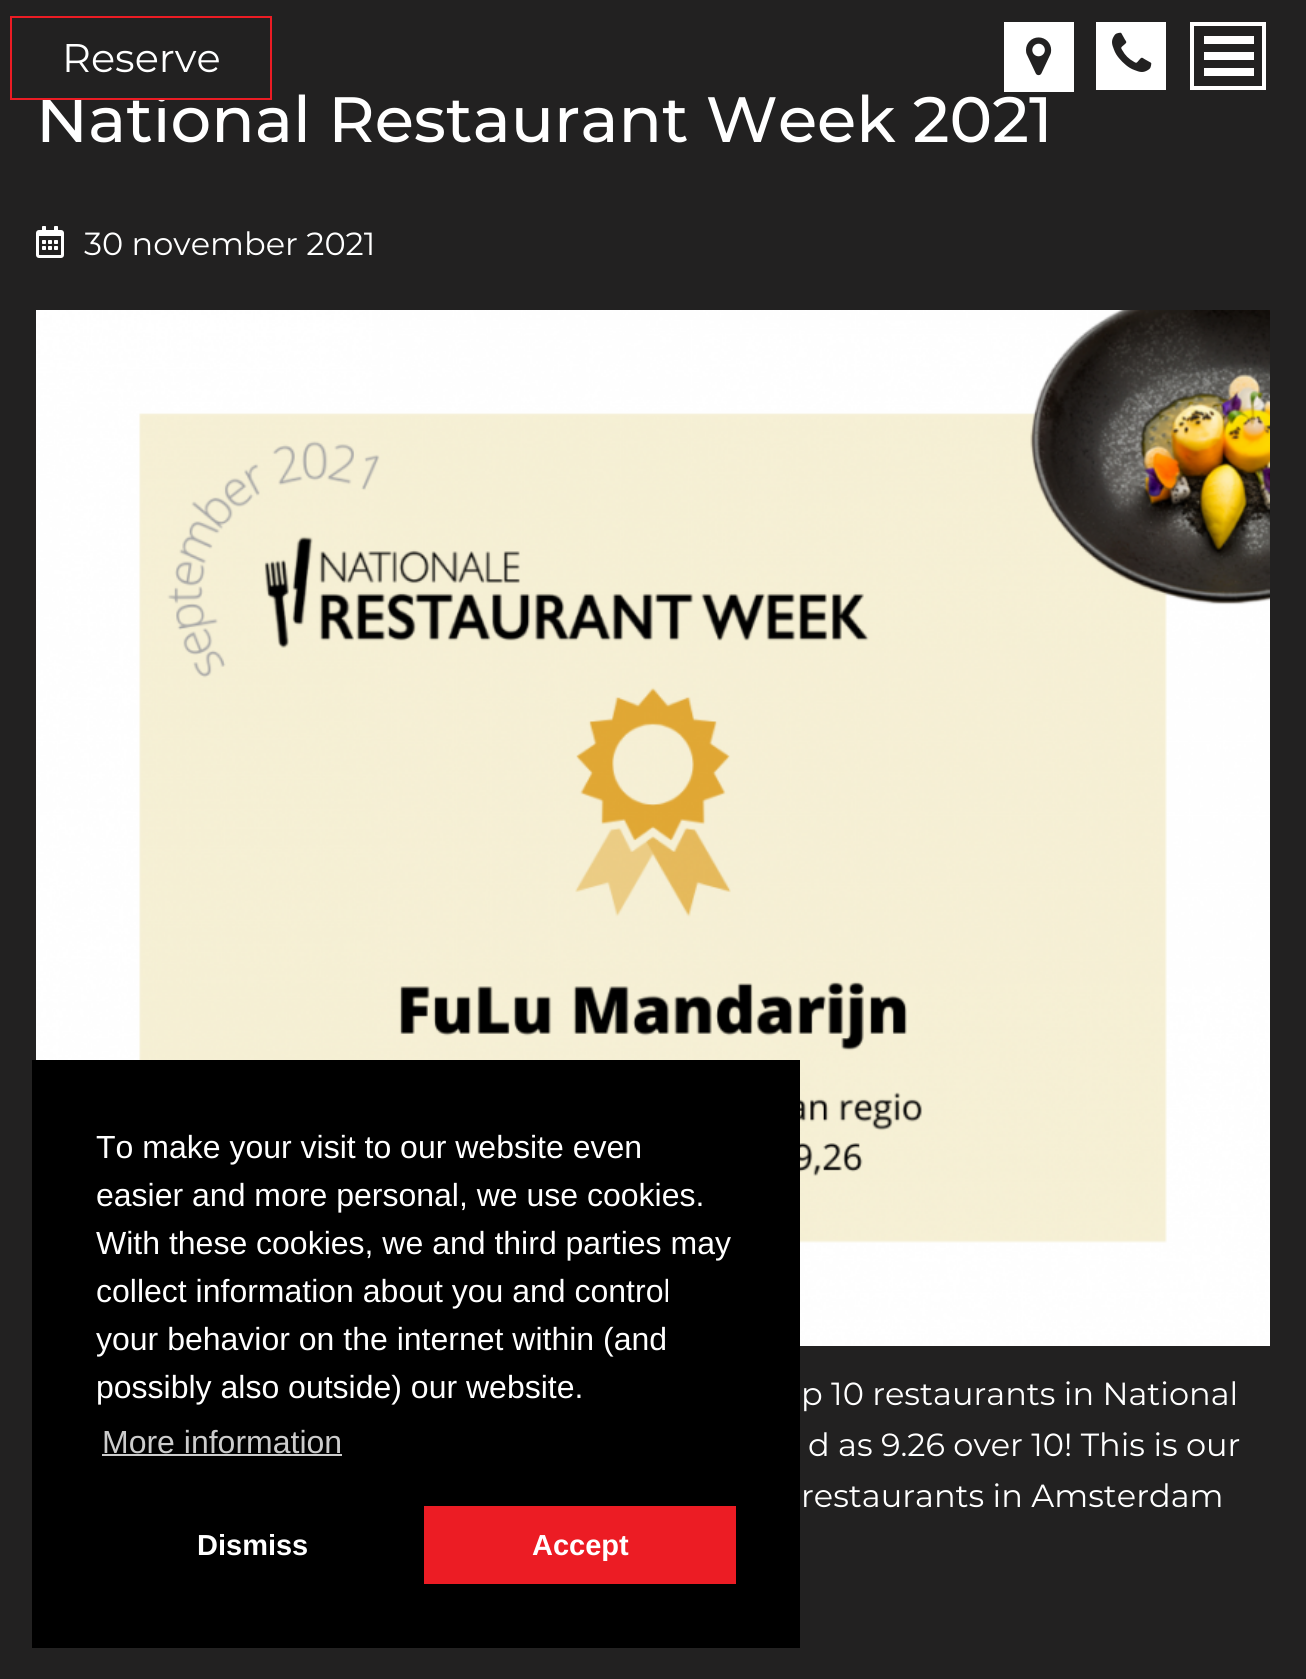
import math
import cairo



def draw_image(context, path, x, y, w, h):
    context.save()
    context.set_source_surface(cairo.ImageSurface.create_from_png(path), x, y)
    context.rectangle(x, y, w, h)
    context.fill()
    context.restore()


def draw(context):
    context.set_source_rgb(34 / 255, 33 / 255, 33 / 255)
    context.paint()
    context.set_source_rgb(1, 1, 1)
    context.rectangle(1004, 22, 70, 70)
    context.fill()
    draw_image(context, "images/1.png", 1026, 37, 26, 39)
    context.rectangle(1096, 22, 70, 68)
    context.fill()
    draw_image(context, "images/2.png", 1112, 32, 40, 40)
    context.rectangle(1192, 24, 72, 64)
    context.set_line_width(4)
    context.stroke()
    context.rectangle(1204, 36, 50, 8)
    context.fill()
    context.rectangle(1204, 52, 50, 8)
    context.fill()
    context.rectangle(1204, 68, 50, 8)
    context.fill()
    draw_image(context, "images/3.png", 36, 226, 28, 32)
    draw_image(context, "images/4.png", 36, 310, 1234, 1036)
    context.set_source_rgb(0, 0, 0)
    context.rectangle(32, 1060, 768, 588)
    context.fill()
    context.set_source_rgb(204 / 255, 204 / 255, 204 / 255)
    context.rectangle(102, 1454, 240, 2)
    context.fill()
    context.set_source_rgb(236 / 255, 28 / 255, 36 / 255)
    context.rectangle(424, 1506, 312, 78)
    context.fill()
    context.select_font_face("Montserrat Medium")
    context.set_font_size(64)
    context.set_source_rgb(1, 1, 1)
    context.move_to(36, 142)
    context.show_text("National Restaurant Week 2021")
    context.set_source_rgb(34 / 255, 33 / 255, 33 / 255)
    context.rectangle(42, 93, 124, 5)
    context.fill()
    context.rectangle(11, 17, 260, 82)
    context.set_source_rgb(236 / 255, 28 / 255, 36 / 255)
    context.set_line_width(2)
    context.stroke()
    context.select_font_face("Montserrat")
    context.set_font_size(40)
    context.set_source_rgb(1, 1, 1)
    context.move_to(62, 72)
    context.show_text("Reserve")
    context.set_font_size(32)
    context.move_to(84, 255)
    context.show_text("30 november 2021")
    context.move_to(801, 1405)
    context.show_text("p 10 restaurants in National")
    context.move_to(808, 1456)
    context.show_text("d as 9.26 over 10! This is our")
    context.move_to(801, 1507)
    context.show_text("restaurants in Amsterdam")
    context.select_font_face("Liberation Sans")
    context.move_to(96, 1158)
    context.show_text("To make your visit to our website even")
    context.move_to(96, 1206)
    context.show_text("easier and more personal, we use cookies.")
    context.move_to(96, 1254)
    context.show_text("With these cookies, we and third parties may")
    context.move_to(96, 1302)
    context.show_text("collect information about you and control")
    context.move_to(96, 1350)
    context.show_text("your behavior on the internet within (and")
    context.move_to(96, 1398)
    context.show_text("possibly also outside) our website.")
    context.set_source_rgb(204 / 255, 204 / 255, 204 / 255)
    context.move_to(102, 1453)
    context.show_text("More information")
    context.select_font_face("Liberation Sans", cairo.FontSlant.NORMAL, cairo.FontWeight.BOLD)
    context.set_font_size(29)
    context.set_source_rgb(1, 1, 1)
    context.move_to(197, 1555)
    context.show_text("Dismiss")
    context.move_to(532, 1555)
    context.show_text("Accept")


surface = cairo.ImageSurface(cairo.Format.RGB24, 1306, 1679)
context = cairo.Context(surface)
options = cairo.FontOptions()
options.set_hint_metrics(cairo.HintMetrics.OFF)
options.set_hint_style(cairo.HintStyle.NONE)
context.set_font_options(options)
context.set_miter_limit(4)
draw(context)
surface.write_to_png("out.png")
